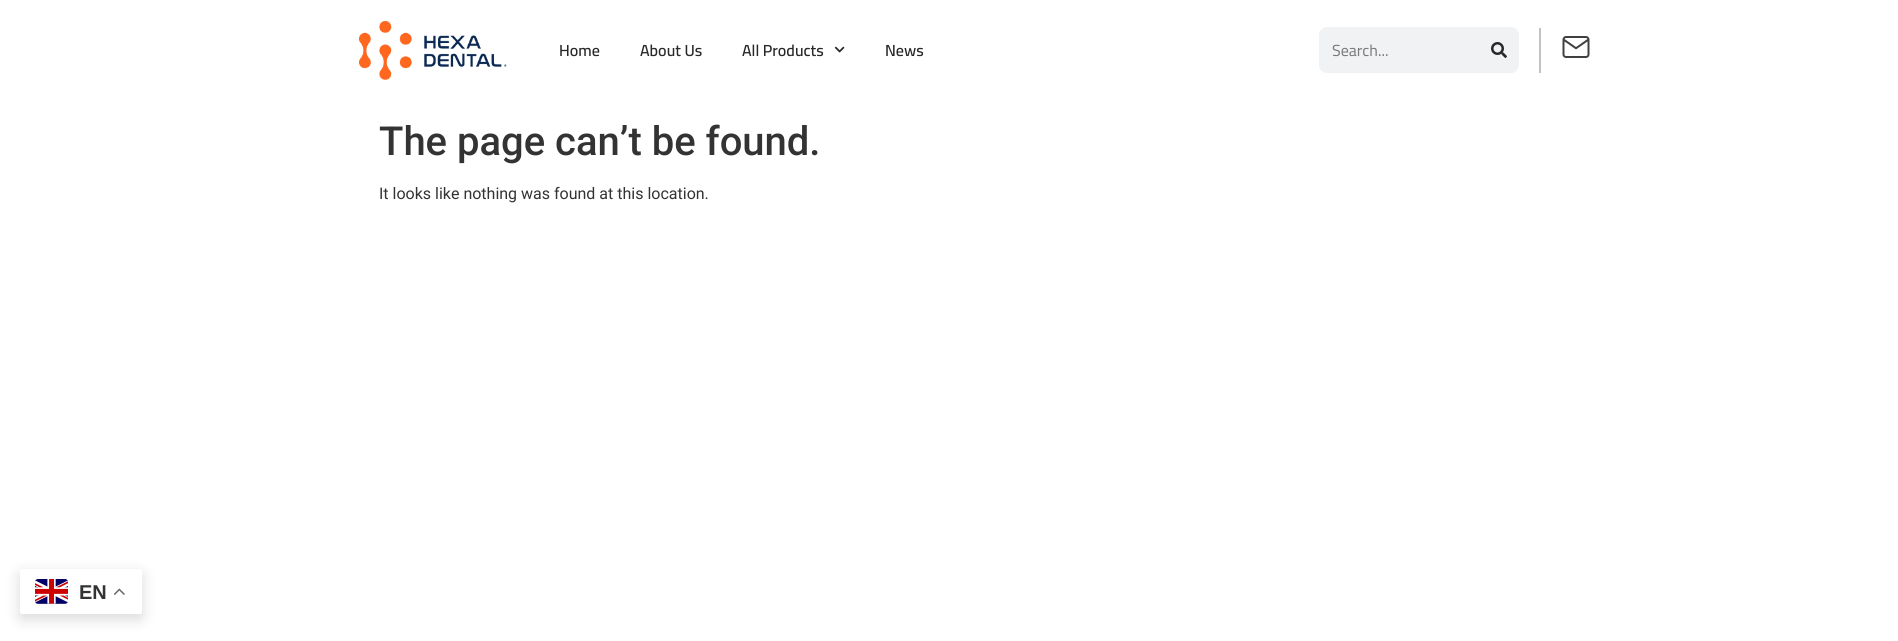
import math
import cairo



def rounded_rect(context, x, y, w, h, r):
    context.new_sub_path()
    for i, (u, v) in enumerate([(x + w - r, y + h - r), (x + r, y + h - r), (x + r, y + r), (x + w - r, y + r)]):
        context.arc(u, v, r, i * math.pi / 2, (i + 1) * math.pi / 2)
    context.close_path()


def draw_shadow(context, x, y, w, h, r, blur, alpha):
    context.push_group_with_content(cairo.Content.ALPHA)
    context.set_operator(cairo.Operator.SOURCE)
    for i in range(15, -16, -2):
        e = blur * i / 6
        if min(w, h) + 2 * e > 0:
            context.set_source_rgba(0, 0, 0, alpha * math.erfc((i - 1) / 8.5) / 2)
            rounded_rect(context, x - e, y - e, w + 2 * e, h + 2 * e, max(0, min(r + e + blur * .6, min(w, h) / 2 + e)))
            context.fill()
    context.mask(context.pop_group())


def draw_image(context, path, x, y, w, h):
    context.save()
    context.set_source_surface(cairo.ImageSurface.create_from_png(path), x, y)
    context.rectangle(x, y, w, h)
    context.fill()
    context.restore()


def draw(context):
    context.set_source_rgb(1, 1, 1)
    context.paint()
    draw_image(context, "images/1.png", 359, 20, 148, 60)
    draw_image(context, "images/2.png", 834, 46, 11, 7)
    context.set_source_rgb(241 / 255, 242 / 255, 243 / 255)
    rounded_rect(context, 1319, 27, 200, 46, 8)
    context.fill()
    draw_image(context, "images/3.png", 1491, 42, 16, 16)
    context.set_source_rgb(194 / 255, 194 / 255, 194 / 255)
    context.rectangle(1539, 28, 2, 45)
    context.fill()
    draw_image(context, "images/4.png", 1562, 36, 28, 22)
    context.set_source_rgb(0, 0, 0)
    draw_shadow(context, 20, 574, 122, 45, 2, 7.5, 0.15)
    context.set_source_rgb(1, 1, 1)
    rounded_rect(context, 20, 569, 122, 45, 2)
    context.fill()
    draw_image(context, "images/5.png", 35, 579, 33, 25)
    draw_image(context, "images/6.png", 114, 588, 11, 7)
    context.select_font_face("Cairo SemiBold")
    context.set_font_size(16)
    context.set_source_rgb(40 / 255, 40 / 255, 40 / 255)
    context.move_to(559, 56)
    context.show_text("Home")
    context.move_to(640, 56)
    context.show_text("About Us")
    context.move_to(742, 56)
    context.show_text("All Products")
    context.move_to(885, 56)
    context.show_text("News")
    context.select_font_face("Cairo")
    context.set_source_rgb(120 / 255, 121 / 255, 121 / 255)
    context.move_to(1332, 56)
    context.show_text("Search...")
    context.select_font_face("Roboto Medium")
    context.set_font_size(40)
    context.set_source_rgb(51 / 255, 51 / 255, 51 / 255)
    context.move_to(379, 155)
    context.show_text("The page can’t be found.")
    context.select_font_face("Roboto")
    context.set_font_size(16)
    context.move_to(379, 199)
    context.show_text("It looks like nothing was found at this location.")
    context.select_font_face("Liberation Sans", cairo.FontSlant.NORMAL, cairo.FontWeight.BOLD)
    context.set_font_size(20)
    context.move_to(79, 599)
    context.show_text("EN")


surface = cairo.ImageSurface(cairo.Format.RGB24, 1898, 641)
context = cairo.Context(surface)
options = cairo.FontOptions()
options.set_hint_metrics(cairo.HintMetrics.OFF)
options.set_hint_style(cairo.HintStyle.NONE)
context.set_font_options(options)
context.set_miter_limit(4)
draw(context)
surface.write_to_png("out.png")
